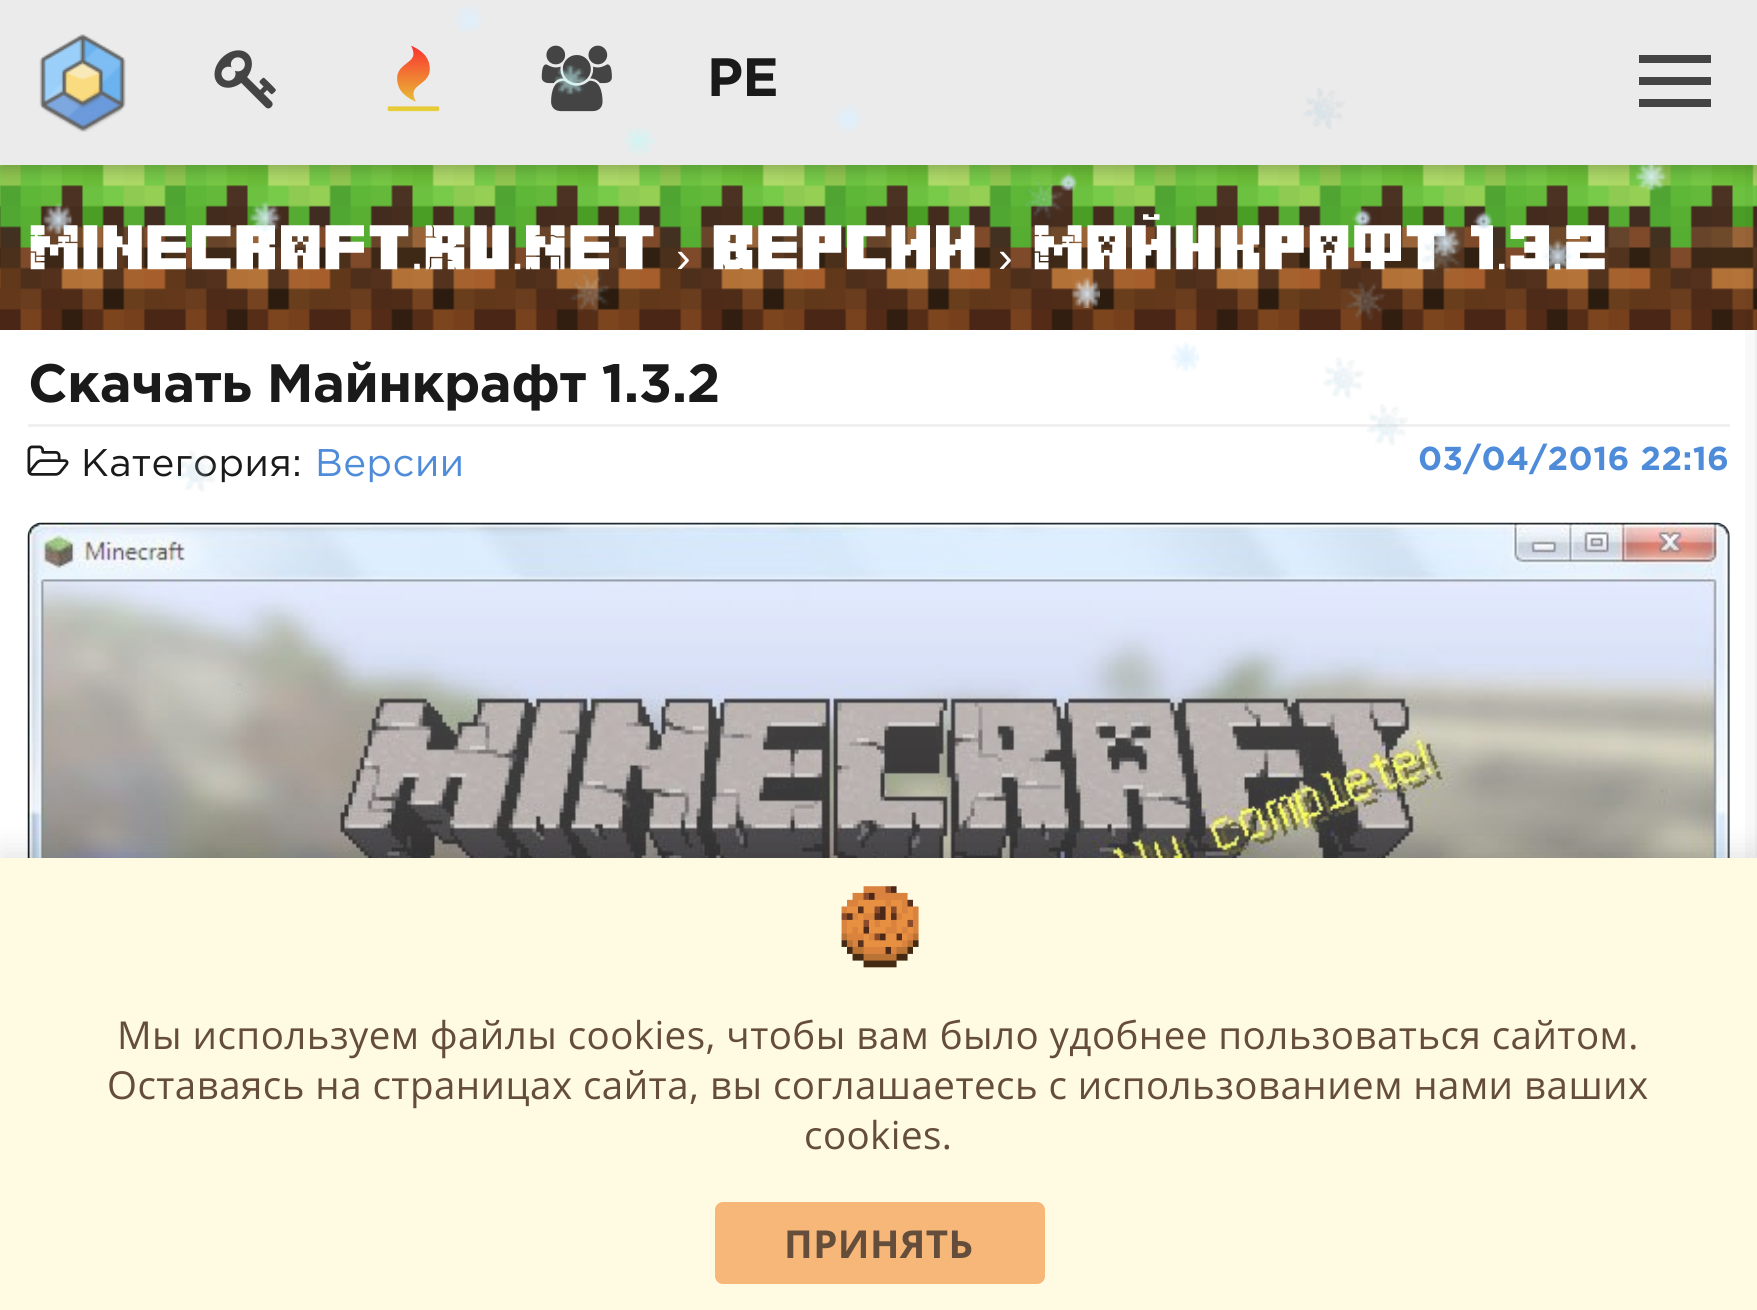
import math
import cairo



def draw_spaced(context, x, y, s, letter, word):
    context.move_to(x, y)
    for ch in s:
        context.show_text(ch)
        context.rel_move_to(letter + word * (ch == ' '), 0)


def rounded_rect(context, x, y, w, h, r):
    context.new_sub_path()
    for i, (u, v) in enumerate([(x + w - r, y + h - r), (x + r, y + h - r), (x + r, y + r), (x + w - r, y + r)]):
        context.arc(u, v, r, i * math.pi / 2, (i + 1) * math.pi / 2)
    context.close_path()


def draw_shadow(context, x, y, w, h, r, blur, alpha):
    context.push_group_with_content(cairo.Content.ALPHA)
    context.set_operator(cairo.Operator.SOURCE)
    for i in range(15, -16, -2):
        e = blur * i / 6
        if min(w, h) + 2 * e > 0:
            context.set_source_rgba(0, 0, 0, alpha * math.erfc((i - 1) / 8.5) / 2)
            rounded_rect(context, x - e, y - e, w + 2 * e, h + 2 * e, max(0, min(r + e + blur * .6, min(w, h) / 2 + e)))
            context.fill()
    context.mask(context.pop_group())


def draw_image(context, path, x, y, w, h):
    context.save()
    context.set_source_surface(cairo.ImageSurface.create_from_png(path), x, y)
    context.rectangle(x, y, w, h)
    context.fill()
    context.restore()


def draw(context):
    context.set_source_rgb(1, 1, 1)
    context.paint()
    draw_image(context, "images/6.png", 0, 165, 1757, 165)
    gradient = cairo.LinearGradient(1719, 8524, 1755, 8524)
    gradient.add_color_stop_rgba(0, 0, 0, 0, 0)
    gradient.add_color_stop_rgba(1, 0, 0, 0, 0.03)
    context.set_source(gradient)
    context.rectangle(1745, 165, 10, 693)
    context.fill()
    context.set_source_rgba(0, 0, 0, 0.06)
    context.rectangle(1755, 165, 2, 693)
    context.fill()
    context.set_source_rgb(0, 0, 0)
    draw_shadow(context, 0, 6, 1757, 165, 0, 8, 0.2)
    context.set_source_rgb(235 / 255, 235 / 255, 235 / 255)
    context.rectangle(0, 0, 1757, 165)
    context.fill()
    draw_image(context, "images/1.png", 454, 5, 28, 28)
    draw_image(context, "images/2.png", 39, 34, 87, 98)
    draw_image(context, "images/3.png", 214, 50, 62, 59)
    draw_image(context, "images/4.png", 387, 45, 53, 67)
    draw_image(context, "images/5.png", 541, 45, 71, 67)
    context.set_source_rgb(68 / 255, 68 / 255, 68 / 255)
    context.rectangle(1639, 55, 72, 8)
    context.fill()
    context.rectangle(1639, 77, 72, 8)
    context.fill()
    context.rectangle(1639, 99, 72, 8)
    context.fill()
    context.set_source_rgb(240 / 255, 240 / 255, 240 / 255)
    context.rectangle(28, 424, 1702, 3)
    context.fill()
    draw_image(context, "images/7.png", 27, 445, 42, 31)
    draw_image(context, "images/8.png", 27, 522, 1703, 336)
    gradient = cairo.LinearGradient(879, 525, 879, 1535)
    gradient.add_color_stop_rgba(0, 1, 1, 1, 0.3)
    gradient.add_color_stop_rgba(1, 1, 1, 1, 0)
    context.set_source(gradient)
    rounded_rect(context, 30, 525, 1697, 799, 14)
    context.fill()
    rounded_rect(context, 31.5, 526.5, 1694, 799, 12.5)
    context.set_source_rgba(1, 1, 1, 0.3)
    context.set_line_width(3)
    context.stroke()
    context.set_source_rgb(0, 0, 0)
    draw_shadow(context, 0, 850, 1757, 454, 0, 14, 0.1)
    context.set_source_rgb(1, 250 / 255, 226 / 255)
    context.rectangle(0, 858, 1757, 452)
    context.fill()
    draw_image(context, "images/9.png", 841, 886, 78, 82)
    context.set_source_rgb(246 / 255, 183 / 255, 120 / 255)
    rounded_rect(context, 715, 1202, 330, 82, 8)
    context.fill()
    draw_image(context, "images/10.png", 554, 65, 32, 30)
    draw_image(context, "images/11.png", 834, 104, 28, 28)
    draw_image(context, "images/12.png", 1303, 88, 42, 41)
    draw_image(context, "images/13.png", 624, 126, 31, 29)
    draw_image(context, "images/20.png", 1635, 162, 33, 29)
    draw_image(context, "images/24.png", 569, 272, 41, 41)
    draw_image(context, "images/25.png", 1071, 277, 29, 31)
    draw_image(context, "images/26.png", 1345, 281, 41, 41)
    draw_image(context, "images/27.png", 1171, 341, 28, 30)
    draw_image(context, "images/28.png", 1323, 357, 41, 42)
    draw_image(context, "images/29.png", 1367, 404, 41, 42)
    context.select_font_face("Gotham", cairo.FontSlant.NORMAL, cairo.FontWeight.BOLD)
    context.set_font_size(53.9)
    context.set_source_rgb(26 / 255, 26 / 255, 26 / 255)
    draw_spaced(context, 707, 96, "PE", -0.5, 0)
    context.select_font_face("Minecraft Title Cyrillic")
    context.set_font_size(44)
    context.set_source_rgb(1, 1, 1)
    draw_spaced(context, 28, 272, "Minecraft.Ru.Net", 0.45, 0)
    context.select_font_face("Liberation Sans")
    draw_spaced(context, 676, 272, "›", 0.45, 0)
    context.select_font_face("Minecraft Title Cyrillic")
    draw_spaced(context, 711, 272, "Версии", 0.45, 0)
    context.select_font_face("Liberation Sans")
    draw_spaced(context, 998, 272, "›", 0.45, 0)
    context.select_font_face("Minecraft Title Cyrillic")
    draw_spaced(context, 1032, 272, "Майнкрафт 1.3.2", 0.45, 0)
    context.select_font_face("Gotham", cairo.FontSlant.NORMAL, cairo.FontWeight.BOLD)
    context.set_font_size(53.9)
    context.set_source_rgb(26 / 255, 26 / 255, 26 / 255)
    draw_spaced(context, 28, 402, "Скачать Майнкрафт 1.3.2", -0.5, 0)
    context.select_font_face("Gotham")
    context.set_font_size(38.5)
    draw_spaced(context, 81, 476, "Категория:", 0.45, 0)
    context.set_source_rgb(78 / 255, 140 / 255, 218 / 255)
    draw_spaced(context, 315, 476, "Версии", 0.45, 0)
    context.select_font_face("Gotham", cairo.FontSlant.NORMAL, cairo.FontWeight.BOLD)
    context.set_font_size(33.1)
    draw_spaced(context, 1418, 470, "03/04/2016 22:16", 0.45, 0)
    context.select_font_face("Open Sans")
    context.set_font_size(38.5)
    context.set_source_rgb(101 / 255, 77 / 255, 59 / 255)
    draw_spaced(context, 117, 1049, "Мы используем файлы cookies, чтобы вам было удобнее пользоваться сайтом.", 0.45, 0)
    draw_spaced(context, 107, 1099, "Оставаясь на страницах сайта, вы соглашаетесь c использованием нами ваших", 0.45, 0)
    draw_spaced(context, 804, 1149, "cookies.", 0.45, 0)
    context.select_font_face("Open Sans", cairo.FontSlant.NORMAL, cairo.FontWeight.BOLD)
    draw_spaced(context, 784, 1258, "ПРИНЯТЬ", 0.45, 0)
    draw_image(context, "images/14.png", 43, 202, 30, 33)
    draw_image(context, "images/15.png", 249, 200, 33, 32)
    draw_image(context, "images/16.png", 1023, 179, 41, 41)
    draw_image(context, "images/17.png", 1058, 172, 20, 19)
    draw_image(context, "images/18.png", 1352, 208, 20, 19)
    draw_image(context, "images/19.png", 1473, 211, 20, 18)
    draw_image(context, "images/21.png", 1430, 225, 31, 32)
    draw_image(context, "images/22.png", 1422, 234, 41, 41)
    draw_image(context, "images/23.png", 1542, 239, 30, 32)
    draw_image(context, "images/30.png", 176, 451, 41, 41)


surface = cairo.ImageSurface(cairo.Format.RGB24, 1757, 1310)
context = cairo.Context(surface)
options = cairo.FontOptions()
options.set_hint_metrics(cairo.HintMetrics.OFF)
options.set_hint_style(cairo.HintStyle.NONE)
context.set_font_options(options)
context.set_miter_limit(4)
draw(context)
surface.write_to_png("out.png")
